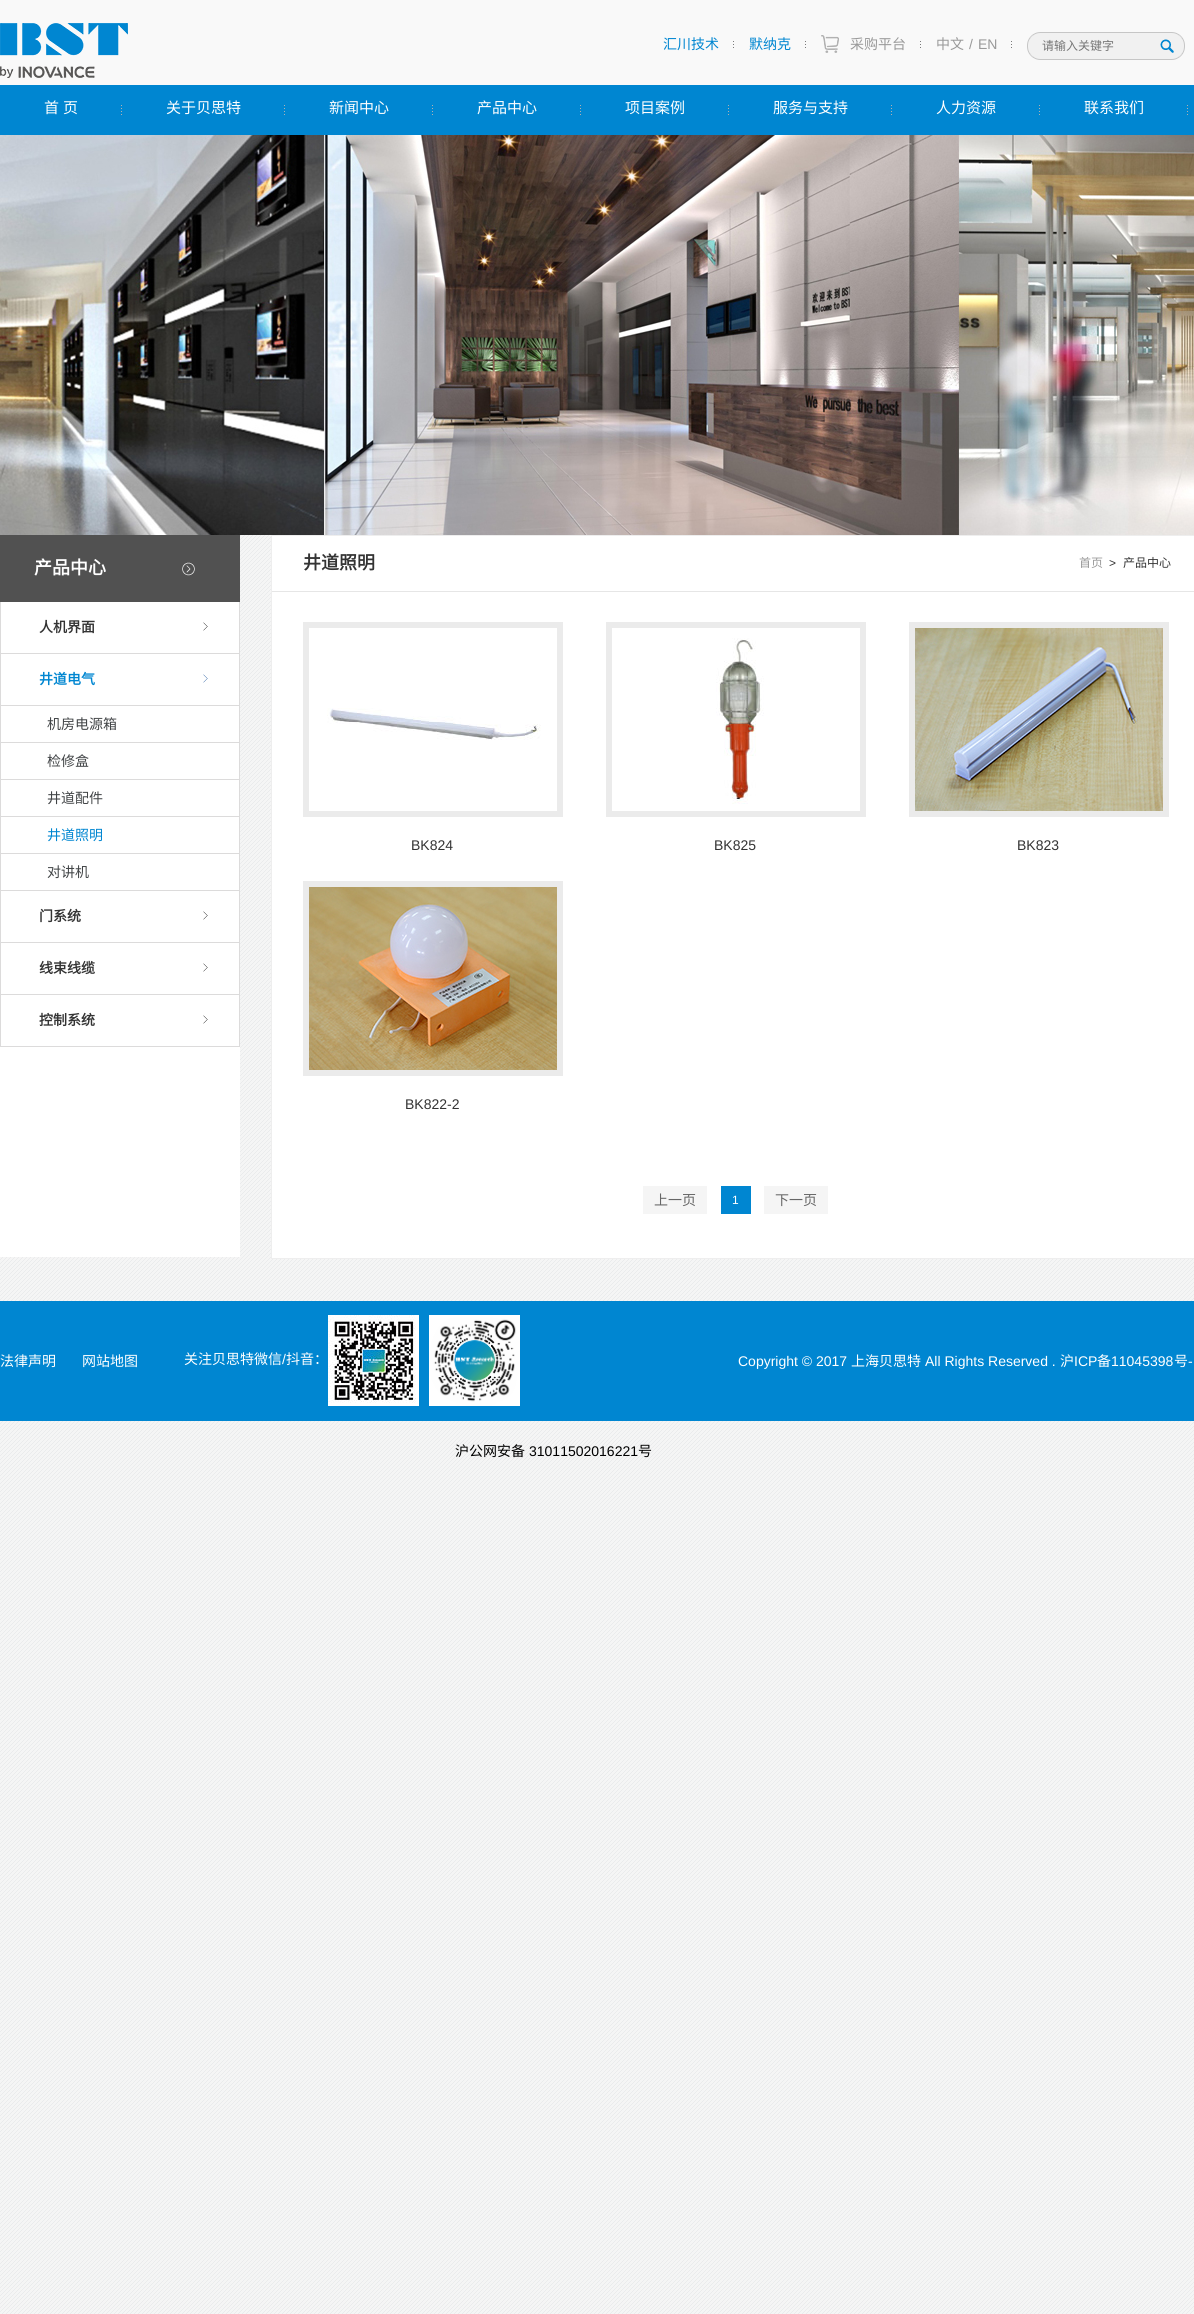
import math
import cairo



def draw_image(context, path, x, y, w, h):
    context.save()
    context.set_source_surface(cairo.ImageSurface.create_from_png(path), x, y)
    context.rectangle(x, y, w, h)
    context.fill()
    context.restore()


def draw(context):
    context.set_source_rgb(1, 1, 1)
    context.paint()
    draw_image(context, "images/1.png", 0, 535, 1194, 1779)
    context.set_source_rgb(249 / 255, 249 / 255, 249 / 255)
    context.rectangle(0, 0, 1194, 85)
    context.fill()
    draw_image(context, "images/2.png", 0, 23, 128, 55)
    draw_image(context, "images/3.png", 733, 41, 1, 7)
    draw_image(context, "images/3.png", 805, 41, 1, 7)
    draw_image(context, "images/3.png", 920, 41, 1, 7)
    draw_image(context, "images/4.png", 821, 35, 18, 18)
    draw_image(context, "images/3.png", 1011, 41, 1, 7)
    draw_image(context, "images/5.png", 1027, 32, 158, 28)
    draw_image(context, "images/6.png", 1160, 39, 14, 14)
    context.set_source_rgb(0, 134 / 255, 209 / 255)
    context.rectangle(0, 85, 1194, 50)
    context.fill()
    draw_image(context, "images/7.png", 121, 105, 1, 10)
    draw_image(context, "images/7.png", 284, 105, 1, 10)
    draw_image(context, "images/7.png", 432, 105, 1, 10)
    draw_image(context, "images/7.png", 580, 105, 1, 10)
    draw_image(context, "images/7.png", 728, 105, 1, 10)
    draw_image(context, "images/7.png", 891, 105, 1, 10)
    draw_image(context, "images/7.png", 1039, 105, 1, 10)
    draw_image(context, "images/7.png", 1187, 105, 1, 10)
    draw_image(context, "images/8.png", 0, 135, 1194, 400)
    context.set_source_rgb(1, 1, 1)
    context.rectangle(0, 602, 240, 655)
    context.fill()
    context.set_source_rgb(81 / 255, 81 / 255, 81 / 255)
    context.rectangle(0, 535, 240, 67)
    context.fill()
    draw_image(context, "images/9.png", 182, 562, 13, 14)
    context.set_source_rgb(220 / 255, 219 / 255, 219 / 255)
    context.rectangle(239, 602, 1, 445)
    context.fill()
    context.rectangle(0, 653, 240, 1)
    context.fill()
    context.rectangle(0, 602, 1, 52)
    context.fill()
    draw_image(context, "images/10.png", 203, 622, 5, 9)
    context.rectangle(0, 890, 240, 1)
    context.fill()
    context.rectangle(0, 654, 1, 237)
    context.fill()
    draw_image(context, "images/11.png", 203, 674, 5, 9)
    context.rectangle(1, 705, 238, 1)
    context.fill()
    context.rectangle(1, 742, 238, 1)
    context.fill()
    context.rectangle(1, 779, 238, 1)
    context.fill()
    context.rectangle(1, 816, 238, 1)
    context.fill()
    context.rectangle(1, 853, 238, 1)
    context.fill()
    context.rectangle(0, 942, 240, 1)
    context.fill()
    context.rectangle(0, 891, 1, 52)
    context.fill()
    draw_image(context, "images/10.png", 203, 911, 5, 9)
    context.rectangle(0, 994, 240, 1)
    context.fill()
    context.rectangle(0, 943, 1, 52)
    context.fill()
    draw_image(context, "images/10.png", 203, 963, 5, 9)
    context.rectangle(0, 1046, 240, 1)
    context.fill()
    context.rectangle(0, 995, 1, 52)
    context.fill()
    draw_image(context, "images/10.png", 203, 1015, 5, 9)
    context.set_source_rgb(1, 1, 1)
    context.rectangle(271.5, 535.5, 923, 723)
    context.fill_preserve()
    context.set_source_rgb(238 / 255, 238 / 255, 238 / 255)
    context.set_line_width(1)
    context.stroke()
    context.set_source_rgb(230 / 255, 230 / 255, 230 / 255)
    context.rectangle(272, 591, 922, 1)
    context.fill()
    context.rectangle(306, 625, 254, 189)
    context.set_source_rgb(235 / 255, 235 / 255, 235 / 255)
    context.set_line_width(6)
    context.stroke()
    draw_image(context, "images/12.png", 327, 708, 214, 32)
    context.rectangle(609, 625, 254, 189)
    context.stroke()
    draw_image(context, "images/13.png", 716, 638, 48, 166)
    context.rectangle(912, 625, 254, 189)
    context.stroke()
    draw_image(context, "images/14.png", 915, 628, 248, 183)
    context.rectangle(306, 884, 254, 189)
    context.stroke()
    draw_image(context, "images/15.png", 309, 887, 248, 183)
    context.set_source_rgb(245 / 255, 245 / 255, 245 / 255)
    context.rectangle(643, 1186, 64, 28)
    context.fill()
    context.set_source_rgb(0, 134 / 255, 209 / 255)
    context.rectangle(721, 1186, 30, 28)
    context.fill()
    context.set_source_rgb(245 / 255, 245 / 255, 245 / 255)
    context.rectangle(764, 1186, 64, 28)
    context.fill()
    context.set_source_rgb(0, 134 / 255, 209 / 255)
    context.rectangle(0, 1301, 1194, 120)
    context.fill()
    draw_image(context, "images/16.png", 328, 1315, 91, 91)
    draw_image(context, "images/17.png", 429, 1315, 91, 91)
    context.select_font_face("Noto Sans CJK SC")
    context.set_font_size(14)
    context.move_to(663, 49)
    context.show_text("汇川技术")
    context.move_to(749, 49)
    context.show_text("默纳克")
    context.set_source_rgb(153 / 255, 153 / 255, 153 / 255)
    context.move_to(850, 49)
    context.show_text("采购平台")
    context.move_to(936, 49)
    context.show_text("中文")
    context.select_font_face("Liberation Sans")
    context.move_to(969, 49)
    context.show_text("/")
    context.move_to(978, 49)
    context.show_text("EN")
    context.select_font_face("Noto Sans CJK SC")
    context.set_font_size(12)
    context.set_source_rgb(117 / 255, 117 / 255, 117 / 255)
    context.move_to(1042, 50)
    context.show_text("请输入关键字")
    context.set_font_size(15)
    context.set_source_rgb(1, 1, 1)
    context.move_to(44, 113)
    context.show_text("首")
    context.move_to(63, 113)
    context.show_text("页")
    context.move_to(166, 113)
    context.show_text("关于贝思特")
    context.move_to(329, 113)
    context.show_text("新闻中心")
    context.move_to(477, 113)
    context.show_text("产品中心")
    context.move_to(625, 113)
    context.show_text("项目案例")
    context.move_to(773, 113)
    context.show_text("服务与支持")
    context.move_to(936, 113)
    context.show_text("人力资源")
    context.move_to(1084, 113)
    context.show_text("联系我们")
    context.select_font_face("Noto Sans CJK SC", cairo.FontSlant.NORMAL, cairo.FontWeight.BOLD)
    context.set_font_size(18)
    context.move_to(34, 574)
    context.show_text("产品中心")
    context.set_font_size(14)
    context.set_source_rgb(51 / 255, 51 / 255, 51 / 255)
    context.move_to(39, 632)
    context.show_text("人机界面")
    context.set_source_rgb(0, 134 / 255, 209 / 255)
    context.move_to(39, 684)
    context.show_text("井道电气")
    context.select_font_face("Noto Sans CJK SC")
    context.set_source_rgb(65 / 255, 68 / 255, 70 / 255)
    context.move_to(47, 729)
    context.show_text("机房电源箱")
    context.move_to(47, 766)
    context.show_text("检修盒")
    context.move_to(47, 803)
    context.show_text("井道配件")
    context.set_source_rgb(0, 134 / 255, 209 / 255)
    context.move_to(47, 840)
    context.show_text("井道照明")
    context.set_source_rgb(65 / 255, 68 / 255, 70 / 255)
    context.move_to(47, 877)
    context.show_text("对讲机")
    context.select_font_face("Noto Sans CJK SC", cairo.FontSlant.NORMAL, cairo.FontWeight.BOLD)
    context.set_source_rgb(51 / 255, 51 / 255, 51 / 255)
    context.move_to(39, 921)
    context.show_text("门系统")
    context.move_to(39, 973)
    context.show_text("线束线缆")
    context.move_to(39, 1025)
    context.show_text("控制系统")
    context.set_font_size(18)
    context.move_to(303, 569)
    context.show_text("井道照明")
    context.select_font_face("Noto Sans CJK SC")
    context.set_font_size(12)
    context.set_source_rgb(153 / 255, 153 / 255, 153 / 255)
    context.move_to(1079, 567)
    context.show_text("首页")
    context.select_font_face("Liberation Sans")
    context.set_source_rgb(51 / 255, 51 / 255, 51 / 255)
    context.move_to(1109, 567)
    context.show_text(">")
    context.select_font_face("Noto Sans CJK SC")
    context.move_to(1123, 567)
    context.show_text("产品中心")
    context.select_font_face("Liberation Sans")
    context.set_font_size(14)
    context.move_to(411, 850)
    context.show_text("BK824")
    context.move_to(714, 850)
    context.show_text("BK825")
    context.move_to(1017, 850)
    context.show_text("BK823")
    context.move_to(405, 1109)
    context.show_text("BK822-2")
    context.select_font_face("Noto Sans CJK SC")
    context.set_source_rgb(102 / 255, 102 / 255, 102 / 255)
    context.move_to(654, 1205)
    context.show_text("上一页")
    context.select_font_face("Liberation Sans")
    context.set_font_size(12)
    context.set_source_rgb(1, 1, 1)
    context.move_to(732, 1204)
    context.show_text("1")
    context.select_font_face("Noto Sans CJK SC")
    context.set_font_size(14)
    context.set_source_rgb(102 / 255, 102 / 255, 102 / 255)
    context.move_to(775, 1205)
    context.show_text("下一页")
    context.set_source_rgb(1, 1, 1)
    context.move_to(0, 1366)
    context.show_text("法律声明")
    context.move_to(82, 1366)
    context.show_text("网站地图")
    context.move_to(184, 1364)
    context.show_text("关注贝思特微信")
    context.select_font_face("Liberation Sans")
    context.move_to(282, 1364)
    context.show_text("/")
    context.select_font_face("Noto Sans CJK SC")
    context.move_to(286, 1364)
    context.show_text("抖音：")
    context.select_font_face("Liberation Sans")
    context.move_to(738, 1366)
    context.show_text("Copyright © 2017")
    context.select_font_face("Noto Sans CJK SC")
    context.move_to(851, 1366)
    context.show_text("上海贝思特")
    context.select_font_face("Liberation Sans")
    context.move_to(925, 1366)
    context.show_text("All Rights Reserved .")
    context.select_font_face("Noto Sans CJK SC")
    context.move_to(1060, 1366)
    context.show_text("沪")
    context.select_font_face("Liberation Sans")
    context.move_to(1074, 1366)
    context.show_text("ICP")
    context.select_font_face("Noto Sans CJK SC")
    context.move_to(1097, 1366)
    context.show_text("备")
    context.select_font_face("Liberation Sans")
    context.move_to(1111, 1366)
    context.show_text("11045398")
    context.select_font_face("Noto Sans CJK SC")
    context.move_to(1174, 1366)
    context.show_text("号")
    context.select_font_face("Liberation Sans")
    context.move_to(1188, 1366)
    context.show_text("-")
    context.select_font_face("Noto Sans CJK SC")
    context.set_source_rgb(0, 0, 0)
    context.move_to(455, 1456)
    context.show_text("沪公网安备")
    context.select_font_face("Liberation Sans")
    context.move_to(529, 1456)
    context.show_text("31011502016221")
    context.select_font_face("Noto Sans CJK SC")
    context.move_to(638, 1456)
    context.show_text("号")


surface = cairo.ImageSurface(cairo.Format.RGB24, 1194, 2314)
context = cairo.Context(surface)
options = cairo.FontOptions()
options.set_hint_metrics(cairo.HintMetrics.OFF)
options.set_hint_style(cairo.HintStyle.NONE)
context.set_font_options(options)
context.set_miter_limit(4)
draw(context)
surface.write_to_png("out.png")
